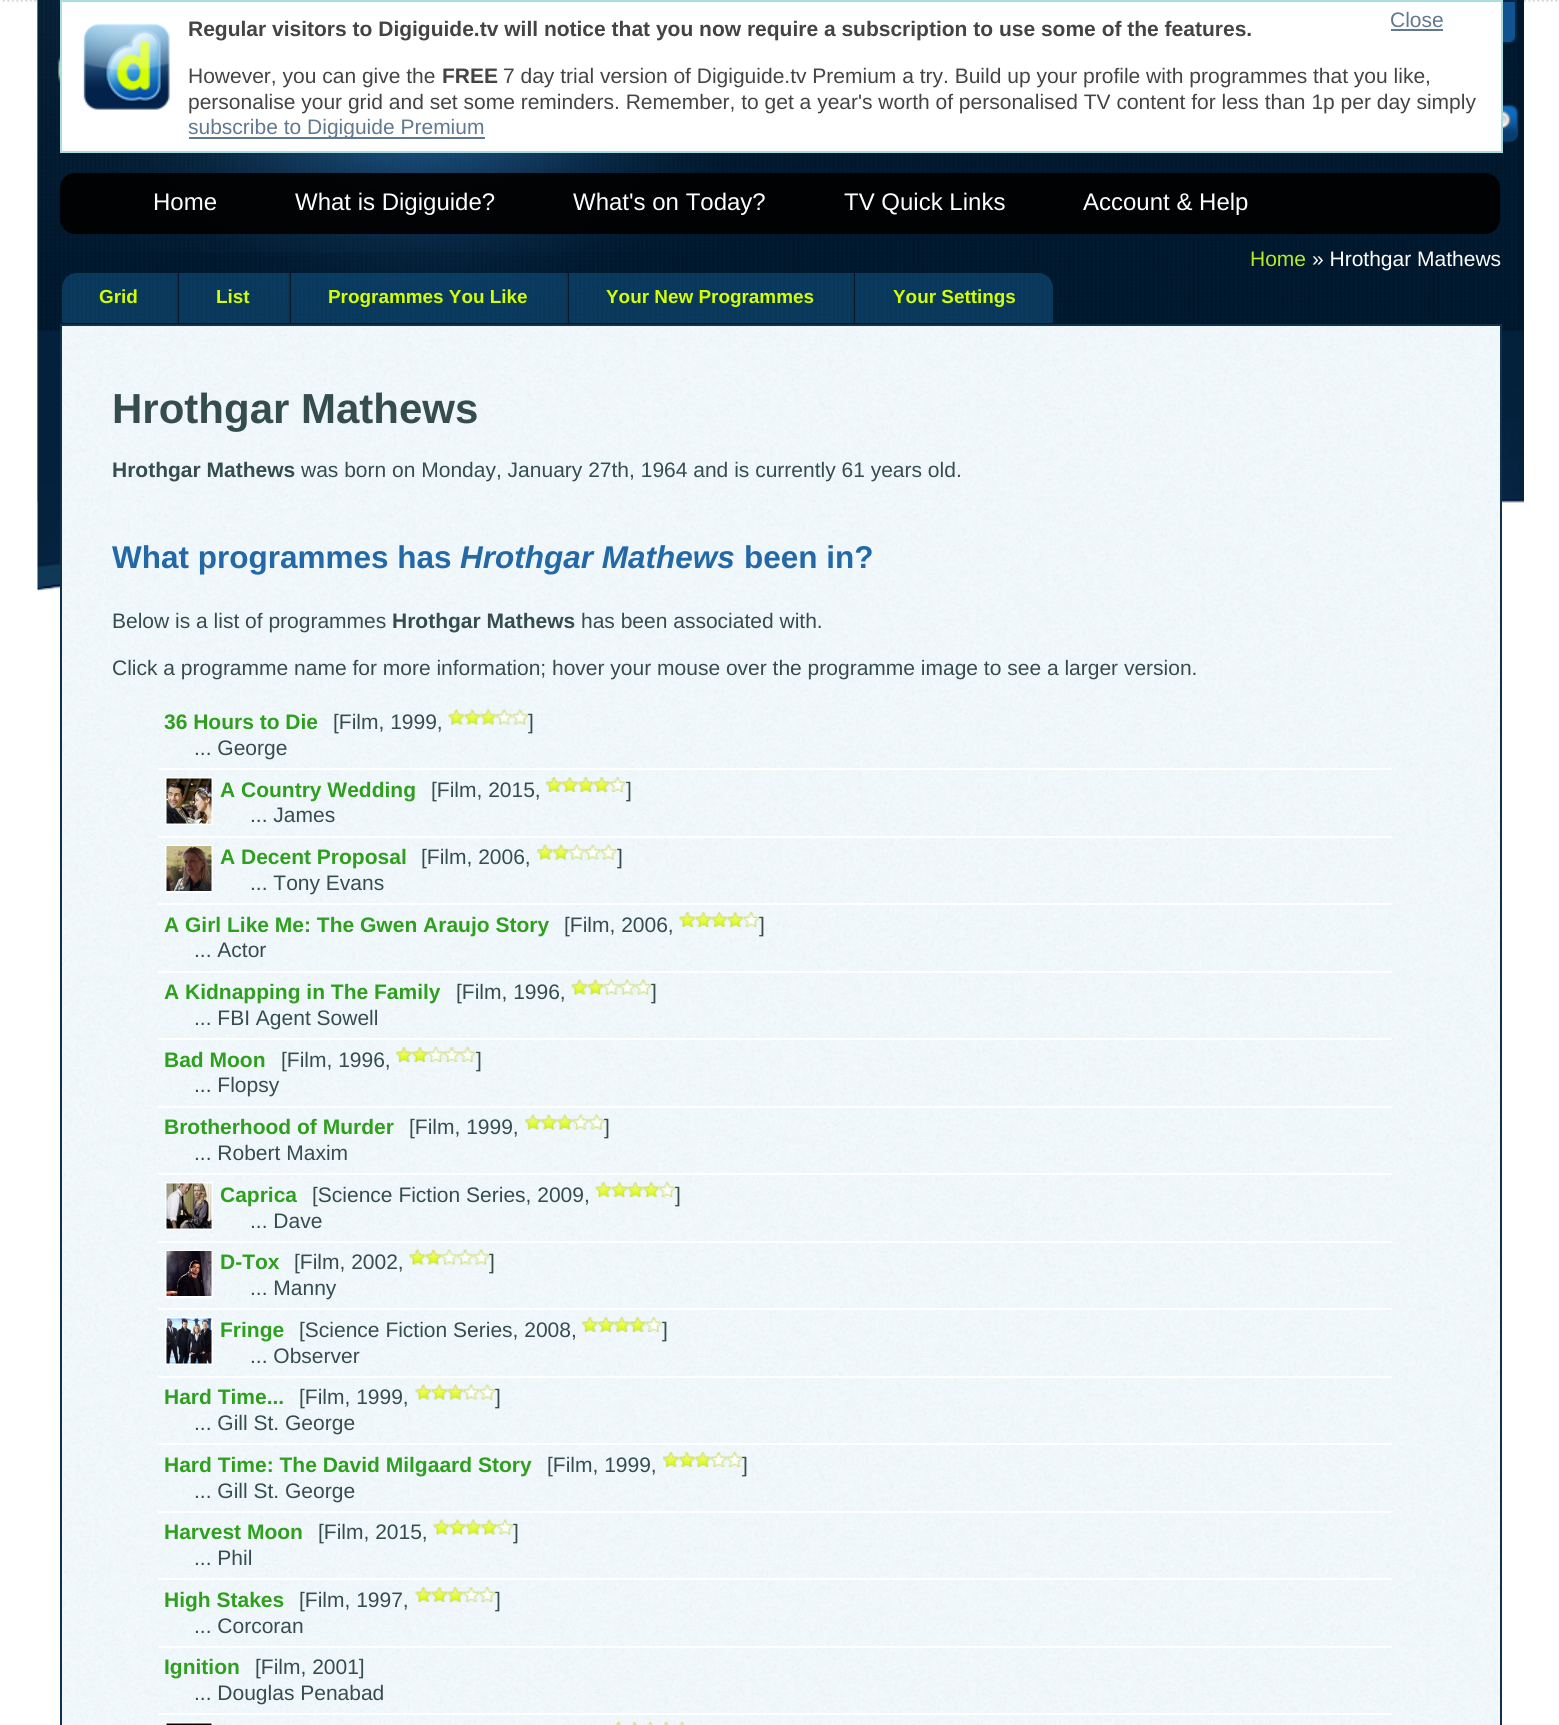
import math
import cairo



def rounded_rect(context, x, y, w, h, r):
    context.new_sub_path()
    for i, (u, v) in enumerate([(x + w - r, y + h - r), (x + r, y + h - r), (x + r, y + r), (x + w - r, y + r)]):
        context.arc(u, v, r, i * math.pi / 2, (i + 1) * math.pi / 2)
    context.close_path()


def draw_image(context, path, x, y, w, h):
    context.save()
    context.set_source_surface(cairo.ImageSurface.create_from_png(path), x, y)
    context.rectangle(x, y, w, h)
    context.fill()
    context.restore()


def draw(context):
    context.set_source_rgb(1, 1, 1)
    context.paint()
    draw_image(context, "images/1.png", 2, 0, 1556, 4)
    draw_image(context, "images/2.png", 37, 0, 1487, 503)
    draw_image(context, "images/3.png", 37, 0, 1483, 592)
    context.set_source_rgb(17 / 255, 83 / 255, 143 / 255)
    context.new_path()
    context.move_to(1422, 1)
    context.line_to(1516, 1)
    context.line_to(1516, 36)
    context.curve_to(1516, 40, 1513, 43, 1509, 43)
    context.line_to(1429, 43)
    context.curve_to(1425, 43, 1422, 40, 1422, 36)
    context.close_path()
    context.fill_preserve()
    context.set_source_rgb(6 / 255, 38 / 255, 68 / 255)
    context.stroke()
    context.set_source_rgb(1, 1, 1)
    context.rectangle(61, 1, 1441, 151)
    context.fill_preserve()
    context.set_source_rgb(170 / 255, 221 / 255, 221 / 255)
    context.stroke()
    draw_image(context, "images/4.png", 83, 23, 87, 87)
    context.set_source_rgb(96 / 255, 120 / 255, 144 / 255)
    context.rectangle(1391, 29, 52, 2)
    context.fill()
    context.rectangle(189, 137, 296, 2)
    context.fill()
    context.set_source_rgba(24 / 255, 105 / 255, 163 / 255, 0.4)
    context.new_path()
    context.move_to(77, 273)
    context.line_to(177, 273)
    context.line_to(177, 323)
    context.line_to(62, 323)
    context.line_to(62, 288)
    context.curve_to(62, 279.5, 68.5, 273, 77, 273)
    context.close_path()
    context.fill()
    context.set_source_rgb(16 / 255, 50 / 255, 78 / 255)
    context.rectangle(176, 273, 2, 50)
    context.fill()
    context.set_source_rgba(24 / 255, 105 / 255, 163 / 255, 0.4)
    context.rectangle(179, 273, 109, 50)
    context.fill()
    context.set_source_rgb(16 / 255, 50 / 255, 78 / 255)
    context.rectangle(288, 273, 2, 50)
    context.fill()
    context.set_source_rgba(24 / 255, 105 / 255, 163 / 255, 0.4)
    context.rectangle(291, 273, 275, 50)
    context.fill()
    context.set_source_rgb(16 / 255, 50 / 255, 78 / 255)
    context.rectangle(566, 273, 2, 50)
    context.fill()
    context.set_source_rgba(24 / 255, 105 / 255, 163 / 255, 0.4)
    context.rectangle(569, 273, 283, 50)
    context.fill()
    context.set_source_rgb(16 / 255, 50 / 255, 78 / 255)
    context.rectangle(852, 273, 2, 50)
    context.fill()
    context.set_source_rgba(24 / 255, 105 / 255, 163 / 255, 0.4)
    context.new_path()
    context.move_to(855, 273)
    context.line_to(1038, 273)
    context.curve_to(1046.5, 273, 1053, 279.5, 1053, 288)
    context.line_to(1053, 323)
    context.line_to(855, 323)
    context.close_path()
    context.fill()
    draw_image(context, "images/5.png", 62, 326, 1438, 1399)
    context.rectangle(61, 325, 1440, 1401)
    context.set_source_rgb(16 / 255, 50 / 255, 78 / 255)
    context.stroke()
    context.set_source_rgb(1, 1, 1)
    context.rectangle(158, 768, 1234, 2)
    context.fill()
    draw_image(context, "images/6.png", 448, 709, 80, 16)
    context.rectangle(158, 836, 1234, 2)
    context.fill()
    context.rectangle(166, 778, 46, 46)
    context.stroke()
    draw_image(context, "images/7.png", 166, 778, 46, 46)
    draw_image(context, "images/8.png", 546, 777, 80, 15)
    context.rectangle(158, 903, 1234, 2)
    context.fill()
    context.rectangle(166, 846, 46, 46)
    context.stroke()
    draw_image(context, "images/9.png", 166, 846, 46, 45)
    draw_image(context, "images/10.png", 537, 844, 80, 16)
    context.rectangle(158, 971, 1234, 2)
    context.fill()
    draw_image(context, "images/11.png", 679, 912, 80, 15)
    context.rectangle(158, 1038, 1234, 2)
    context.fill()
    draw_image(context, "images/12.png", 571, 979, 80, 16)
    context.rectangle(158, 1106, 1234, 2)
    context.fill()
    draw_image(context, "images/13.png", 396, 1047, 80, 15)
    context.rectangle(158, 1173, 1234, 2)
    context.fill()
    draw_image(context, "images/14.png", 525, 1114, 80, 16)
    context.rectangle(158, 1241, 1234, 2)
    context.fill()
    context.rectangle(166, 1183, 46, 46)
    context.stroke()
    draw_image(context, "images/15.png", 166, 1183, 46, 46)
    draw_image(context, "images/16.png", 595, 1182, 80, 15)
    context.rectangle(158, 1308, 1234, 2)
    context.fill()
    context.rectangle(166, 1251, 46, 46)
    context.stroke()
    draw_image(context, "images/17.png", 166, 1251, 46, 45)
    draw_image(context, "images/18.png", 409, 1249, 80, 16)
    context.rectangle(158, 1376, 1234, 2)
    context.fill()
    context.rectangle(166, 1318, 46, 46)
    context.stroke()
    draw_image(context, "images/19.png", 166, 1318, 46, 46)
    draw_image(context, "images/20.png", 582, 1317, 80, 15)
    context.rectangle(158, 1443, 1234, 2)
    context.fill()
    draw_image(context, "images/21.png", 415, 1384, 80, 16)
    context.rectangle(158, 1511, 1234, 2)
    context.fill()
    draw_image(context, "images/22.png", 663, 1452, 80, 15)
    context.rectangle(158, 1578, 1234, 2)
    context.fill()
    draw_image(context, "images/23.png", 433, 1519, 80, 16)
    context.rectangle(158, 1646, 1234, 2)
    context.fill()
    draw_image(context, "images/24.png", 415, 1587, 80, 15)
    context.rectangle(158, 1713, 1234, 2)
    context.fill()
    context.rectangle(166, 1723, 46, 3)
    context.stroke()
    draw_image(context, "images/25.png", 166, 1723, 46, 2)
    draw_image(context, "images/26.png", 616, 1722, 69, 3)
    draw_image(context, "images/27.png", 58, 55, 2, 29)
    draw_image(context, "images/28.png", 1503, 104, 16, 39)
    context.set_source_rgba(2 / 255, 2 / 255, 2 / 255, 0.95)
    rounded_rect(context, 60, 173, 1440, 61, 15)
    context.fill()
    context.select_font_face("Liberation Sans", cairo.FontSlant.NORMAL, cairo.FontWeight.BOLD)
    context.set_font_size(21)
    context.set_source_rgb(68 / 255, 68 / 255, 68 / 255)
    context.move_to(188, 36)
    context.show_text("Regular visitors to Digiguide.tv will notice that you now require a subscription to use some of the features.")
    context.select_font_face("Liberation Sans")
    context.set_source_rgb(96 / 255, 120 / 255, 144 / 255)
    context.move_to(1390, 27)
    context.show_text("Close")
    context.set_source_rgb(68 / 255, 68 / 255, 68 / 255)
    context.move_to(188, 83)
    context.show_text("However, you can give the")
    context.select_font_face("Liberation Sans", cairo.FontSlant.NORMAL, cairo.FontWeight.BOLD)
    context.move_to(442, 83)
    context.show_text("FREE")
    context.select_font_face("Liberation Sans")
    context.move_to(503, 83)
    context.show_text("7 day trial version of Digiguide.tv Premium a try. Build up your profile with programmes that you like,")
    context.move_to(188, 109)
    context.show_text("personalise your grid and set some reminders. Remember, to get a year's worth of personalised TV content for less than 1p per day simply")
    context.set_source_rgb(96 / 255, 120 / 255, 144 / 255)
    context.move_to(188, 134)
    context.show_text("subscribe to Digiguide Premium")
    context.set_source_rgb(179 / 255, 235 / 255, 36 / 255)
    context.move_to(1250, 266)
    context.show_text("Home")
    context.set_source_rgb(1, 1, 1)
    context.move_to(1312, 266)
    context.show_text("» Hrothgar Mathews")
    context.select_font_face("Liberation Sans", cairo.FontSlant.NORMAL, cairo.FontWeight.BOLD)
    context.set_font_size(18.9)
    context.set_source_rgb(211 / 255, 1, 0)
    context.move_to(99, 303)
    context.show_text("Grid")
    context.move_to(216, 303)
    context.show_text("List")
    context.move_to(328, 303)
    context.show_text("Programmes You Like")
    context.move_to(606, 303)
    context.show_text("Your New Programmes")
    context.move_to(893, 303)
    context.show_text("Your Settings")
    context.set_font_size(42)
    context.set_source_rgb(53 / 255, 77 / 255, 77 / 255)
    context.move_to(112, 423)
    context.show_text("Hrothgar Mathews")
    context.set_font_size(21)
    context.move_to(112, 477)
    context.show_text("Hrothgar Mathews")
    context.select_font_face("Liberation Sans")
    context.move_to(301, 477)
    context.show_text("was born on Monday, January 27th, 1964 and is currently 61 years old.")
    context.select_font_face("Liberation Sans", cairo.FontSlant.NORMAL, cairo.FontWeight.BOLD)
    context.set_font_size(31.5)
    context.set_source_rgb(35 / 255, 105 / 255, 167 / 255)
    context.move_to(112, 568)
    context.show_text("What programmes has")
    context.select_font_face("Liberation Sans", cairo.FontSlant.ITALIC, cairo.FontWeight.BOLD)
    context.move_to(460, 568)
    context.show_text("Hrothgar Mathews")
    context.select_font_face("Liberation Sans", cairo.FontSlant.NORMAL, cairo.FontWeight.BOLD)
    context.move_to(744, 568)
    context.show_text("been in?")
    context.select_font_face("Liberation Sans")
    context.set_font_size(21)
    context.set_source_rgb(53 / 255, 77 / 255, 77 / 255)
    context.move_to(112, 628)
    context.show_text("Below is a list of programmes")
    context.select_font_face("Liberation Sans", cairo.FontSlant.NORMAL, cairo.FontWeight.BOLD)
    context.move_to(392, 628)
    context.show_text("Hrothgar Mathews")
    context.select_font_face("Liberation Sans")
    context.move_to(581, 628)
    context.show_text("has been associated with.")
    context.move_to(112, 675)
    context.show_text("Click a programme name for more information; hover your mouse over the programme image to see a larger version.")
    context.select_font_face("Liberation Sans", cairo.FontSlant.NORMAL, cairo.FontWeight.BOLD)
    context.set_source_rgb(47 / 255, 159 / 255, 32 / 255)
    context.move_to(164, 729)
    context.show_text("36 Hours to Die")
    context.select_font_face("Liberation Sans")
    context.set_source_rgb(53 / 255, 77 / 255, 77 / 255)
    context.move_to(333, 729)
    context.show_text("[Film, 1999,")
    context.move_to(528, 729)
    context.show_text("]")
    context.move_to(194, 755)
    context.show_text("... George")
    context.select_font_face("Liberation Sans", cairo.FontSlant.NORMAL, cairo.FontWeight.BOLD)
    context.set_source_rgb(47 / 255, 159 / 255, 32 / 255)
    context.move_to(220, 797)
    context.show_text("A Country Wedding")
    context.select_font_face("Liberation Sans")
    context.set_source_rgb(53 / 255, 77 / 255, 77 / 255)
    context.move_to(431, 797)
    context.show_text("[Film, 2015,")
    context.move_to(626, 797)
    context.show_text("]")
    context.move_to(250, 822)
    context.show_text("... James")
    context.select_font_face("Liberation Sans", cairo.FontSlant.NORMAL, cairo.FontWeight.BOLD)
    context.set_source_rgb(47 / 255, 159 / 255, 32 / 255)
    context.move_to(220, 864)
    context.show_text("A Decent Proposal")
    context.select_font_face("Liberation Sans")
    context.set_source_rgb(53 / 255, 77 / 255, 77 / 255)
    context.move_to(421, 864)
    context.show_text("[Film, 2006,")
    context.move_to(617, 864)
    context.show_text("]")
    context.move_to(250, 890)
    context.show_text("... Tony Evans")
    context.select_font_face("Liberation Sans", cairo.FontSlant.NORMAL, cairo.FontWeight.BOLD)
    context.set_source_rgb(47 / 255, 159 / 255, 32 / 255)
    context.move_to(164, 932)
    context.show_text("A Girl Like Me: The Gwen Araujo Story")
    context.select_font_face("Liberation Sans")
    context.set_source_rgb(53 / 255, 77 / 255, 77 / 255)
    context.move_to(564, 932)
    context.show_text("[Film, 2006,")
    context.move_to(759, 932)
    context.show_text("]")
    context.move_to(194, 957)
    context.show_text("... Actor")
    context.select_font_face("Liberation Sans", cairo.FontSlant.NORMAL, cairo.FontWeight.BOLD)
    context.set_source_rgb(47 / 255, 159 / 255, 32 / 255)
    context.move_to(164, 999)
    context.show_text("A Kidnapping in The Family")
    context.select_font_face("Liberation Sans")
    context.set_source_rgb(53 / 255, 77 / 255, 77 / 255)
    context.move_to(456, 999)
    context.show_text("[Film, 1996,")
    context.move_to(651, 999)
    context.show_text("]")
    context.move_to(194, 1025)
    context.show_text("... FBI Agent Sowell")
    context.select_font_face("Liberation Sans", cairo.FontSlant.NORMAL, cairo.FontWeight.BOLD)
    context.set_source_rgb(47 / 255, 159 / 255, 32 / 255)
    context.move_to(164, 1067)
    context.show_text("Bad Moon")
    context.select_font_face("Liberation Sans")
    context.set_source_rgb(53 / 255, 77 / 255, 77 / 255)
    context.move_to(281, 1067)
    context.show_text("[Film, 1996,")
    context.move_to(476, 1067)
    context.show_text("]")
    context.move_to(194, 1092)
    context.show_text("... Flopsy")
    context.select_font_face("Liberation Sans", cairo.FontSlant.NORMAL, cairo.FontWeight.BOLD)
    context.set_source_rgb(47 / 255, 159 / 255, 32 / 255)
    context.move_to(164, 1134)
    context.show_text("Brotherhood of Murder")
    context.select_font_face("Liberation Sans")
    context.set_source_rgb(53 / 255, 77 / 255, 77 / 255)
    context.move_to(409, 1134)
    context.show_text("[Film, 1999,")
    context.move_to(604, 1134)
    context.show_text("]")
    context.move_to(194, 1160)
    context.show_text("... Robert Maxim")
    context.select_font_face("Liberation Sans", cairo.FontSlant.NORMAL, cairo.FontWeight.BOLD)
    context.set_source_rgb(47 / 255, 159 / 255, 32 / 255)
    context.move_to(220, 1202)
    context.show_text("Caprica")
    context.select_font_face("Liberation Sans")
    context.set_source_rgb(53 / 255, 77 / 255, 77 / 255)
    context.move_to(312, 1202)
    context.show_text("[Science Fiction Series, 2009,")
    context.move_to(675, 1202)
    context.show_text("]")
    context.move_to(250, 1228)
    context.show_text("... Dave")
    context.select_font_face("Liberation Sans", cairo.FontSlant.NORMAL, cairo.FontWeight.BOLD)
    context.set_source_rgb(47 / 255, 159 / 255, 32 / 255)
    context.move_to(220, 1269)
    context.show_text("D-Tox")
    context.select_font_face("Liberation Sans")
    context.set_source_rgb(53 / 255, 77 / 255, 77 / 255)
    context.move_to(294, 1269)
    context.show_text("[Film, 2002,")
    context.move_to(489, 1269)
    context.show_text("]")
    context.move_to(250, 1295)
    context.show_text("... Manny")
    context.select_font_face("Liberation Sans", cairo.FontSlant.NORMAL, cairo.FontWeight.BOLD)
    context.set_source_rgb(47 / 255, 159 / 255, 32 / 255)
    context.move_to(220, 1337)
    context.show_text("Fringe")
    context.select_font_face("Liberation Sans")
    context.set_source_rgb(53 / 255, 77 / 255, 77 / 255)
    context.move_to(299, 1337)
    context.show_text("[Science Fiction Series, 2008,")
    context.move_to(662, 1337)
    context.show_text("]")
    context.move_to(250, 1363)
    context.show_text("... Observer")
    context.select_font_face("Liberation Sans", cairo.FontSlant.NORMAL, cairo.FontWeight.BOLD)
    context.set_source_rgb(47 / 255, 159 / 255, 32 / 255)
    context.move_to(164, 1404)
    context.show_text("Hard Time...")
    context.select_font_face("Liberation Sans")
    context.set_source_rgb(53 / 255, 77 / 255, 77 / 255)
    context.move_to(299, 1404)
    context.show_text("[Film, 1999,")
    context.move_to(495, 1404)
    context.show_text("]")
    context.move_to(194, 1430)
    context.show_text("... Gill St. George")
    context.select_font_face("Liberation Sans", cairo.FontSlant.NORMAL, cairo.FontWeight.BOLD)
    context.set_source_rgb(47 / 255, 159 / 255, 32 / 255)
    context.move_to(164, 1472)
    context.show_text("Hard Time: The David Milgaard Story")
    context.select_font_face("Liberation Sans")
    context.set_source_rgb(53 / 255, 77 / 255, 77 / 255)
    context.move_to(547, 1472)
    context.show_text("[Film, 1999,")
    context.move_to(742, 1472)
    context.show_text("]")
    context.move_to(194, 1498)
    context.show_text("... Gill St. George")
    context.select_font_face("Liberation Sans", cairo.FontSlant.NORMAL, cairo.FontWeight.BOLD)
    context.set_source_rgb(47 / 255, 159 / 255, 32 / 255)
    context.move_to(164, 1539)
    context.show_text("Harvest Moon")
    context.select_font_face("Liberation Sans")
    context.set_source_rgb(53 / 255, 77 / 255, 77 / 255)
    context.move_to(318, 1539)
    context.show_text("[Film, 2015,")
    context.move_to(513, 1539)
    context.show_text("]")
    context.move_to(194, 1565)
    context.show_text("... Phil")
    context.select_font_face("Liberation Sans", cairo.FontSlant.NORMAL, cairo.FontWeight.BOLD)
    context.set_source_rgb(47 / 255, 159 / 255, 32 / 255)
    context.move_to(164, 1607)
    context.show_text("High Stakes")
    context.select_font_face("Liberation Sans")
    context.set_source_rgb(53 / 255, 77 / 255, 77 / 255)
    context.move_to(299, 1607)
    context.show_text("[Film, 1997,")
    context.move_to(495, 1607)
    context.show_text("]")
    context.move_to(194, 1633)
    context.show_text("... Corcoran")
    context.select_font_face("Liberation Sans", cairo.FontSlant.NORMAL, cairo.FontWeight.BOLD)
    context.set_source_rgb(47 / 255, 159 / 255, 32 / 255)
    context.move_to(164, 1674)
    context.show_text("Ignition")
    context.select_font_face("Liberation Sans")
    context.set_source_rgb(53 / 255, 77 / 255, 77 / 255)
    context.move_to(255, 1674)
    context.show_text("[Film, 2001]")
    context.move_to(194, 1700)
    context.show_text("... Douglas Penabad")
    context.set_font_size(24)
    context.set_source_rgb(1, 1, 1)
    context.move_to(153, 210)
    context.show_text("Home")
    context.move_to(295, 210)
    context.show_text("What is Digiguide?")
    context.move_to(573, 210)
    context.show_text("What's on Today?")
    context.move_to(844, 210)
    context.show_text("TV Quick Links")
    context.move_to(1083, 210)
    context.show_text("Account & Help")


surface = cairo.ImageSurface(cairo.Format.RGB24, 1559, 1725)
context = cairo.Context(surface)
options = cairo.FontOptions()
options.set_hint_metrics(cairo.HintMetrics.OFF)
options.set_hint_style(cairo.HintStyle.NONE)
context.set_font_options(options)
context.set_miter_limit(4)
draw(context)
surface.write_to_png("out.png")
